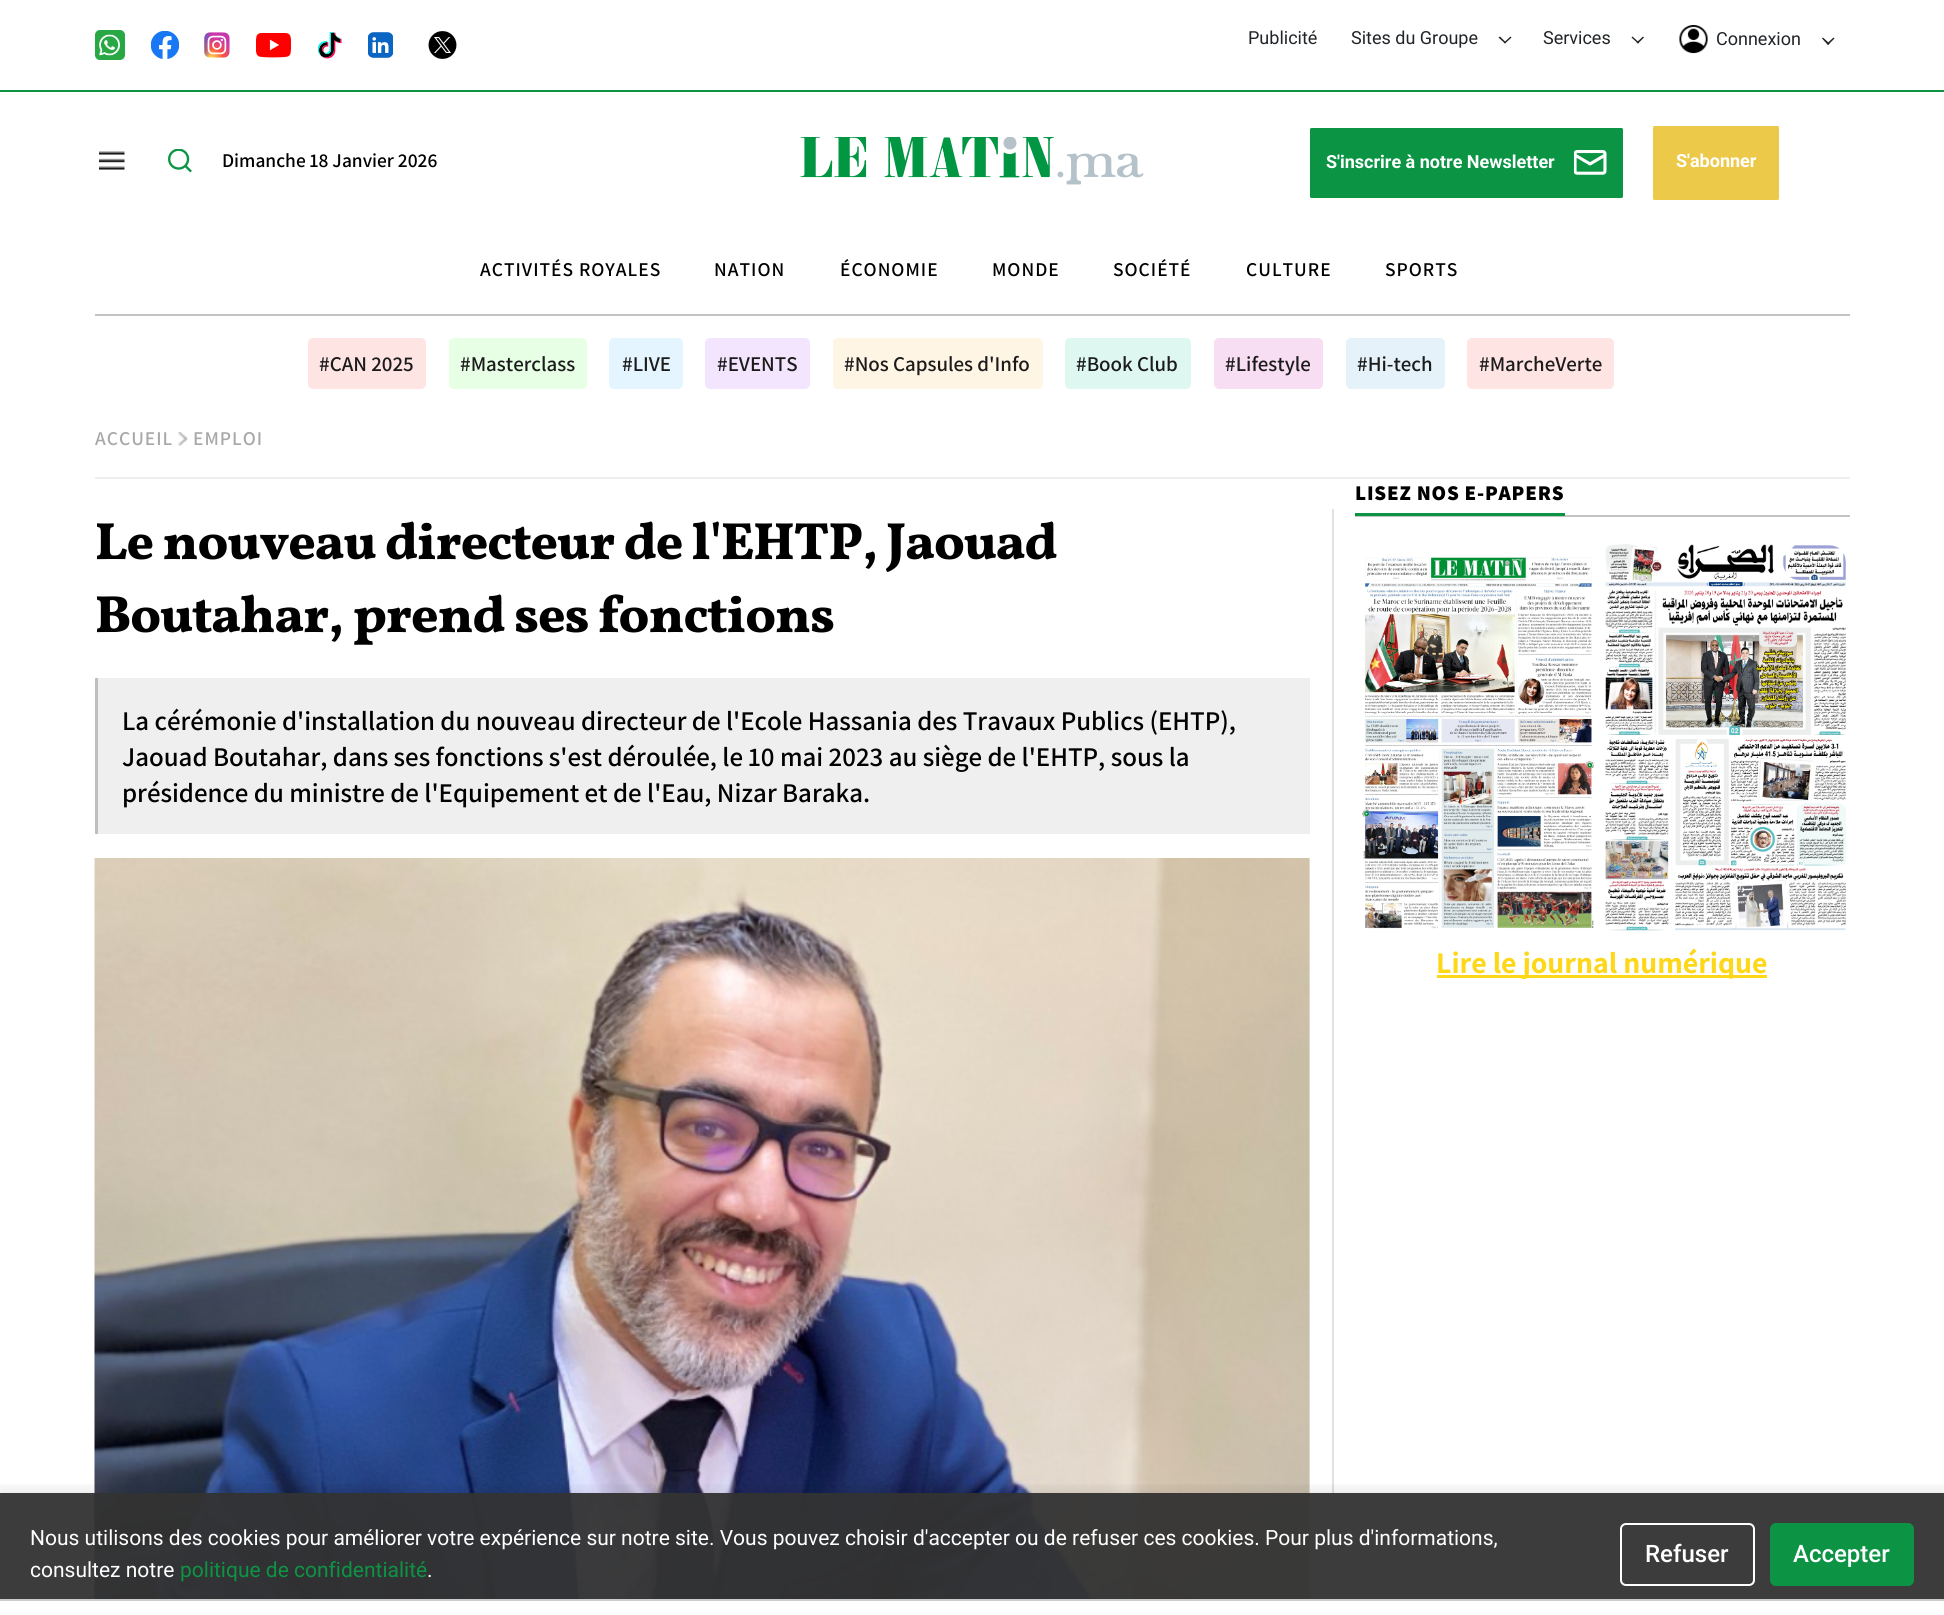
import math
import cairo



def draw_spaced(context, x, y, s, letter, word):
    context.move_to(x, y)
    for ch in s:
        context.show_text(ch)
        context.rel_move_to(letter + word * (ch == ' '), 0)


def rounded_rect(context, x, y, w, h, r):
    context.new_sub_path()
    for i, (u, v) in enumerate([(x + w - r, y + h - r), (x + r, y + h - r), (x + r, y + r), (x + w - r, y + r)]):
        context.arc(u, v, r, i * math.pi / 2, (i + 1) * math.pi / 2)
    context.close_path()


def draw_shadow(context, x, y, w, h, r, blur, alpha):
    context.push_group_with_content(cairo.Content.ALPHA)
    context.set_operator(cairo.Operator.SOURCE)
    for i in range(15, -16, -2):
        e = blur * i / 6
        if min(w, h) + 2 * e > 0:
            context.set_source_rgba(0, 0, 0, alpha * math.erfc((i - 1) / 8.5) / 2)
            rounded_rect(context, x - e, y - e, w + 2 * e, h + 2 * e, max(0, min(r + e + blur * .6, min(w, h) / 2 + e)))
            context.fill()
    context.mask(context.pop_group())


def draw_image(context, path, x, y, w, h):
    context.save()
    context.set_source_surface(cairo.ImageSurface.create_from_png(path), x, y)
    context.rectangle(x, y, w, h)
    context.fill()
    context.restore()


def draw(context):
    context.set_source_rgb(1, 1, 1)
    context.paint()
    context.set_source_rgb(11 / 255, 148 / 255, 68 / 255)
    context.rectangle(0, 90, 1944, 2)
    context.fill()
    context.set_source_rgb(40 / 255, 167 / 255, 69 / 255)
    rounded_rect(context, 95, 30, 30, 30, 5)
    context.fill()
    draw_image(context, "images/1.png", 151, 31, 28, 28)
    draw_image(context, "images/2.png", 204, 32, 26, 26)
    draw_image(context, "images/3.png", 256, 33, 35, 25)
    draw_image(context, "images/4.png", 318, 32, 24, 27)
    draw_image(context, "images/5.png", 368, 32, 25, 26)
    draw_image(context, "images/6.png", 428, 31, 29, 28)
    draw_image(context, "images/7.png", 99, 34, 21, 22)
    context.set_source_rgb(33 / 255, 37 / 255, 41 / 255)
    context.new_path()
    context.move_to(1504, 42.5)
    context.line_to(1510.5, 36.5)
    context.line_to(1511.5, 37.5)
    context.line_to(1505, 43.5)
    context.close_path()
    context.fill()
    context.new_path()
    context.move_to(1498.5, 37.5)
    context.line_to(1500, 36.5)
    context.line_to(1506, 42.5)
    context.line_to(1505, 43.5)
    context.close_path()
    context.fill()
    context.new_path()
    context.move_to(1636.5, 42.5)
    context.line_to(1643, 36.5)
    context.line_to(1644, 37.5)
    context.line_to(1638, 43.5)
    context.close_path()
    context.fill()
    context.new_path()
    context.move_to(1631.5, 37.5)
    context.line_to(1632.5, 36.5)
    context.line_to(1639, 42.5)
    context.line_to(1638, 43.5)
    context.close_path()
    context.fill()
    draw_image(context, "images/8.png", 1679, 25, 29, 29)
    context.new_path()
    context.move_to(1827, 43.5)
    context.line_to(1833.5, 37.5)
    context.line_to(1834.5, 38.5)
    context.line_to(1828, 45)
    context.close_path()
    context.fill()
    context.new_path()
    context.move_to(1822, 38.5)
    context.line_to(1823, 37.5)
    context.line_to(1829.5, 43.5)
    context.line_to(1828, 45)
    context.close_path()
    context.fill()
    draw_image(context, "images/9.png", 99, 151, 26, 19)
    draw_image(context, "images/10.png", 168, 149, 24, 24)
    draw_image(context, "images/11.png", 800, 137, 344, 48)
    context.set_source_rgb(11 / 255, 148 / 255, 68 / 255)
    rounded_rect(context, 1310, 128, 313, 70, 1.5)
    context.fill()
    draw_image(context, "images/12.png", 1574, 150, 33, 25)
    context.set_source_rgb(237 / 255, 201 / 255, 73 / 255)
    rounded_rect(context, 1653, 126, 126, 74, 1.5)
    context.fill()
    context.set_source_rgb(195 / 255, 195 / 255, 195 / 255)
    context.rectangle(95, 314, 1755, 2)
    context.fill()
    context.set_source_rgb(1, 228 / 255, 228 / 255)
    rounded_rect(context, 308, 338, 118, 51, 5)
    context.fill()
    context.set_source_rgb(230 / 255, 1, 229 / 255)
    rounded_rect(context, 449, 338, 138, 51, 5)
    context.fill()
    context.set_source_rgb(228 / 255, 245 / 255, 1)
    rounded_rect(context, 609, 338, 74, 51, 5)
    context.fill()
    context.set_source_rgb(244 / 255, 229 / 255, 1)
    rounded_rect(context, 705, 338, 105, 51, 5)
    context.fill()
    context.set_source_rgb(1, 245 / 255, 229 / 255)
    rounded_rect(context, 833, 338, 210, 51, 5)
    context.fill()
    context.set_source_rgb(222 / 255, 248 / 255, 241 / 255)
    rounded_rect(context, 1065, 338, 126, 51, 5)
    context.fill()
    context.set_source_rgb(248 / 255, 222 / 255, 243 / 255)
    rounded_rect(context, 1214, 338, 109, 51, 5)
    context.fill()
    context.set_source_rgb(229 / 255, 242 / 255, 249 / 255)
    rounded_rect(context, 1346, 338, 99, 51, 5)
    context.fill()
    context.set_source_rgb(1, 228 / 255, 228 / 255)
    rounded_rect(context, 1467, 338, 147, 51, 5)
    context.fill()
    context.set_source_rgb(238 / 255, 238 / 255, 238 / 255)
    context.rectangle(95, 477, 1755, 2)
    context.fill()
    draw_image(context, "images/13.png", 178, 432, 10, 14)
    context.set_source_rgb(239 / 255, 239 / 255, 239 / 255)
    context.rectangle(98, 678, 1212, 156)
    context.fill()
    context.set_source_rgb(191 / 255, 191 / 255, 191 / 255)
    context.rectangle(95, 678, 3, 156)
    context.fill()
    context.set_source_rgb(240 / 255, 240 / 255, 240 / 255)
    context.rectangle(1309, 858, 1, 741)
    context.fill()
    draw_image(context, "images/14.png", 94, 858, 1216, 741)
    context.set_source_rgb(225 / 255, 225 / 255, 225 / 255)
    context.rectangle(1332, 509, 2, 1090)
    context.fill()
    context.set_source_rgb(196 / 255, 196 / 255, 196 / 255)
    context.rectangle(1355, 515, 495, 2)
    context.fill()
    context.set_source_rgb(11 / 255, 148 / 255, 68 / 255)
    context.rectangle(1355, 513, 210, 3)
    context.fill()
    draw_image(context, "images/15.png", 1362, 557, 232, 372)
    draw_image(context, "images/16.png", 1605, 544, 241, 387)
    context.set_source_rgb(253 / 255, 215 / 255, 24 / 255)
    context.rectangle(1437, 975, 330, 3)
    context.fill()
    context.save()
    context.rectangle(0, 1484, 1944, 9)
    context.clip()
    context.set_source_rgb(0, 0, 0)
    draw_shadow(context, 0, 1490, 1944, 123, 0, 7.5, 0.1)
    context.restore()
    context.set_source_rgba(51 / 255, 51 / 255, 51 / 255, 0.95)
    context.rectangle(0, 1493, 1944, 106)
    context.fill()
    rounded_rect(context, 1621, 1524, 133, 61, 5)
    context.set_source_rgb(1, 1, 1)
    context.stroke()
    context.set_source_rgb(12 / 255, 148 / 255, 68 / 255)
    rounded_rect(context, 1770, 1523, 144, 63, 6)
    context.fill()
    context.set_source_rgb(204 / 255, 204 / 255, 204 / 255)
    context.rectangle(0, 1599, 1944, 2)
    context.fill()
    context.select_font_face("Roboto")
    context.set_font_size(18)
    context.set_source_rgb(33 / 255, 37 / 255, 41 / 255)
    context.move_to(1248, 44)
    context.show_text("Publicité")
    context.move_to(1351, 44)
    context.show_text("Sites du Groupe")
    context.move_to(1543, 44)
    context.show_text("Services")
    context.move_to(1716, 45)
    context.show_text("Connexion")
    context.select_font_face("Assistant SemiBold")
    context.set_font_size(19.5)
    context.set_source_rgb(0, 0, 0)
    context.move_to(222, 167)
    context.show_text("Dimanche 18 Janvier 2026")
    context.select_font_face("Roboto", cairo.FontSlant.NORMAL, cairo.FontWeight.BOLD)
    context.set_font_size(18)
    context.set_source_rgb(1, 1, 1)
    context.move_to(1326, 168)
    context.show_text("S'inscrire à notre Newsletter")
    context.move_to(1676, 167)
    context.show_text("S'abonner")
    context.select_font_face("Assistant SemiBold")
    context.set_font_size(19.5)
    context.set_source_rgb(0, 0, 0)
    draw_spaced(context, 480, 276, "ACTIVITÉS ROYALES", 1, 0)
    draw_spaced(context, 714, 276, "NATION", 1, 0)
    draw_spaced(context, 840, 276, "ÉCONOMIE", 1, 0)
    draw_spaced(context, 992, 276, "MONDE", 1, 0)
    draw_spaced(context, 1113, 276, "SOCIÉTÉ", 1, 0)
    draw_spaced(context, 1246, 276, "CULTURE", 1, 0)
    draw_spaced(context, 1385, 276, "SPORTS", 1, 0)
    context.set_font_size(21)
    context.set_source_rgb(27 / 255, 27 / 255, 27 / 255)
    context.move_to(319, 371)
    context.show_text("#CAN 2025")
    context.move_to(460, 371)
    context.show_text("#Masterclass")
    context.move_to(622, 371)
    context.show_text("#LIVE")
    context.move_to(717, 371)
    context.show_text("#EVENTS")
    context.move_to(844, 371)
    context.show_text("#Nos Capsules d'Info")
    context.move_to(1076, 371)
    context.show_text("#Book Club")
    context.move_to(1225, 371)
    context.show_text("#Lifestyle")
    context.move_to(1357, 371)
    context.show_text("#Hi-tech")
    context.move_to(1479, 371)
    context.show_text("#MarcheVerte")
    context.set_font_size(19.5)
    context.set_source_rgb(168 / 255, 168 / 255, 168 / 255)
    draw_spaced(context, 95, 445, "ACCUEIL", 1, 0)
    draw_spaced(context, 193, 445, "EMPLOI", 1, 0)
    context.select_font_face("Vollkorn ExtraBold")
    context.set_font_size(52.5)
    context.set_source_rgb(0, 0, 0)
    draw_spaced(context, 95, 559, "Le nouveau directeur de l'EHTP, Jaouad", -1.05, 0)
    draw_spaced(context, 95, 632, "Boutahar, prend ses fonctions", -1.05, 0)
    context.select_font_face("Assistant SemiBold")
    context.set_font_size(27)
    context.move_to(122, 730)
    context.show_text("La cérémonie d'installation du nouveau directeur de l'Ecole Hassania des Travaux Publics (EHTP),")
    context.move_to(122, 766)
    context.show_text("Jaouad Boutahar, dans ses fonctions s'est déroulée, le 10 mai 2023 au siège de l'EHTP, sous la")
    context.move_to(122, 802)
    context.show_text("présidence du ministre de l'Equipement et de l'Eau, Nizar Baraka.")
    context.select_font_face("Assistant ExtraBold")
    context.set_font_size(21)
    draw_spaced(context, 1355, 500, "LISEZ NOS E-PAPERS", 0.8, 0)
    context.select_font_face("Assistant", cairo.FontSlant.NORMAL, cairo.FontWeight.BOLD)
    context.set_font_size(30)
    context.set_source_rgb(253 / 255, 215 / 255, 24 / 255)
    context.move_to(1436, 973)
    context.show_text("Lire le journal numérique")
    context.select_font_face("Roboto")
    context.set_font_size(21)
    context.set_source_rgb(1, 1, 1)
    context.move_to(30, 1545)
    context.show_text("Nous utilisons des cookies pour améliorer votre expérience sur notre site. Vous pouvez choisir d'accepter ou de refuser ces cookies. Pour plus d'informations,")
    context.move_to(30, 1577)
    context.show_text("consultez notre")
    context.set_source_rgb(12 / 255, 148 / 255, 68 / 255)
    context.move_to(180, 1577)
    context.show_text("politique de confidentialité")
    context.set_source_rgb(1, 1, 1)
    context.move_to(427, 1577)
    context.show_text(".")
    context.select_font_face("Roboto Medium")
    context.set_font_size(24)
    context.move_to(1645, 1562)
    context.show_text("Refuser")
    context.move_to(1793, 1562)
    context.show_text("Accepter")


surface = cairo.ImageSurface(cairo.Format.RGB24, 1944, 1615)
context = cairo.Context(surface)
options = cairo.FontOptions()
options.set_hint_metrics(cairo.HintMetrics.OFF)
options.set_hint_style(cairo.HintStyle.NONE)
context.set_font_options(options)
context.set_miter_limit(4)
draw(context)
surface.write_to_png("out.png")
